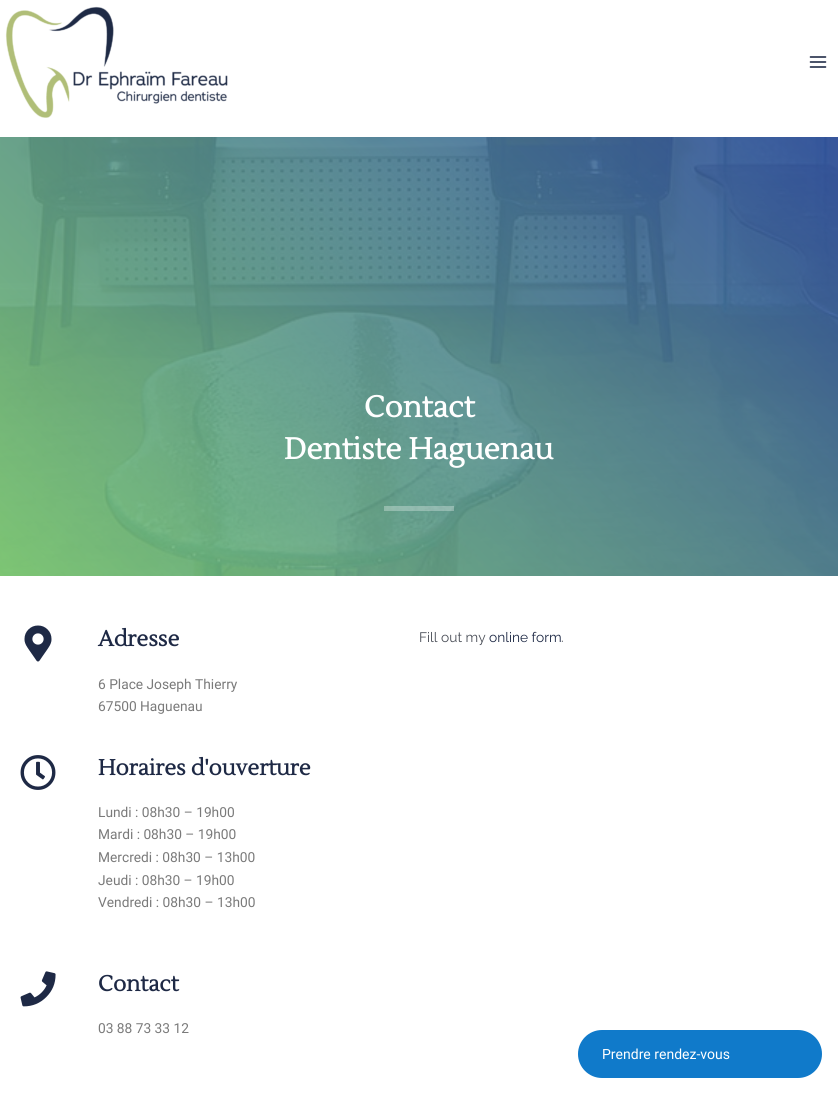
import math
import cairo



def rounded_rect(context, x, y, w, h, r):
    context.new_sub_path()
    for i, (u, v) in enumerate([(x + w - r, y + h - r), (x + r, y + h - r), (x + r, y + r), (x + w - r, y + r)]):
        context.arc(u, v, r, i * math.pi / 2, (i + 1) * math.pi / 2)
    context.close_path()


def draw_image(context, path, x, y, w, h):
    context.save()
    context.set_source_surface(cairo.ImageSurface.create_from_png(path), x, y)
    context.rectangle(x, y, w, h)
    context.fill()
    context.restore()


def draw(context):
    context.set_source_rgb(1, 1, 1)
    context.paint()
    draw_image(context, "images/1.png", 5, 6, 223, 112)
    draw_image(context, "images/2.png", 809, 56, 18, 12)
    draw_image(context, "images/3.png", 0, 137, 838, 439)
    context.set_source_rgba(1, 1, 1, 0.3)
    context.rectangle(384, 506, 70, 5)
    context.fill()
    draw_image(context, "images/4.png", 24, 625, 28, 37)
    draw_image(context, "images/5.png", 20, 755, 36, 35)
    draw_image(context, "images/6.png", 20, 971, 36, 36)
    context.set_source_rgb(16 / 255, 122 / 255, 202 / 255)
    rounded_rect(context, 578, 1030, 244, 48, 24)
    context.fill()
    context.select_font_face("Lustria", cairo.FontSlant.NORMAL, cairo.FontWeight.BOLD)
    context.set_font_size(30)
    context.set_source_rgb(1, 1, 1)
    context.move_to(364, 417)
    context.show_text("Contact")
    context.move_to(284, 459)
    context.show_text("Dentiste Haguenau")
    context.set_font_size(21.9)
    context.set_source_rgb(30 / 255, 41 / 255, 69 / 255)
    context.move_to(98, 646)
    context.show_text("Adresse")
    context.select_font_face("Roboto")
    context.set_font_size(13.75)
    context.set_source_rgb(122 / 255, 122 / 255, 122 / 255)
    context.move_to(98, 689)
    context.show_text("6 Place Joseph Thierry")
    context.move_to(98, 711)
    context.show_text("67500 Haguenau")
    context.select_font_face("Lustria", cairo.FontSlant.NORMAL, cairo.FontWeight.BOLD)
    context.set_font_size(21.9)
    context.set_source_rgb(30 / 255, 41 / 255, 69 / 255)
    context.move_to(98, 775)
    context.show_text("Horaires d'ouverture")
    context.select_font_face("Roboto")
    context.set_font_size(13.75)
    context.set_source_rgb(122 / 255, 122 / 255, 122 / 255)
    context.move_to(98, 817)
    context.show_text("Lundi : 08h30 – 19h00")
    context.move_to(98, 839)
    context.show_text("Mardi : 08h30 – 19h00")
    context.move_to(98, 862)
    context.show_text("Mercredi : 08h30 – 13h00")
    context.move_to(98, 885)
    context.show_text("Jeudi : 08h30 – 19h00")
    context.move_to(98, 907)
    context.show_text("Vendredi : 08h30 – 13h00")
    context.select_font_face("Lustria", cairo.FontSlant.NORMAL, cairo.FontWeight.BOLD)
    context.set_font_size(21.9)
    context.set_source_rgb(30 / 255, 41 / 255, 69 / 255)
    context.move_to(98, 991)
    context.show_text("Contact")
    context.select_font_face("Roboto")
    context.set_font_size(13.75)
    context.set_source_rgb(122 / 255, 122 / 255, 122 / 255)
    context.move_to(98, 1033)
    context.show_text("03 88 73 33 12")
    context.select_font_face("Raleway Thin")
    context.set_source_rgb(75 / 255, 79 / 255, 88 / 255)
    context.move_to(419, 642)
    context.show_text("Fill out my")
    context.set_source_rgb(30 / 255, 41 / 255, 69 / 255)
    context.move_to(489, 642)
    context.show_text("online form")
    context.set_source_rgb(75 / 255, 79 / 255, 88 / 255)
    context.move_to(561, 642)
    context.show_text(".")
    context.select_font_face("Roboto")
    context.set_font_size(14)
    context.set_source_rgb(1, 1, 1)
    context.move_to(602, 1059)
    context.show_text("Prendre rendez-vous")


surface = cairo.ImageSurface(cairo.Format.RGB24, 838, 1094)
context = cairo.Context(surface)
options = cairo.FontOptions()
options.set_hint_metrics(cairo.HintMetrics.OFF)
options.set_hint_style(cairo.HintStyle.NONE)
context.set_font_options(options)
context.set_miter_limit(4)
draw(context)
surface.write_to_png("out.png")
